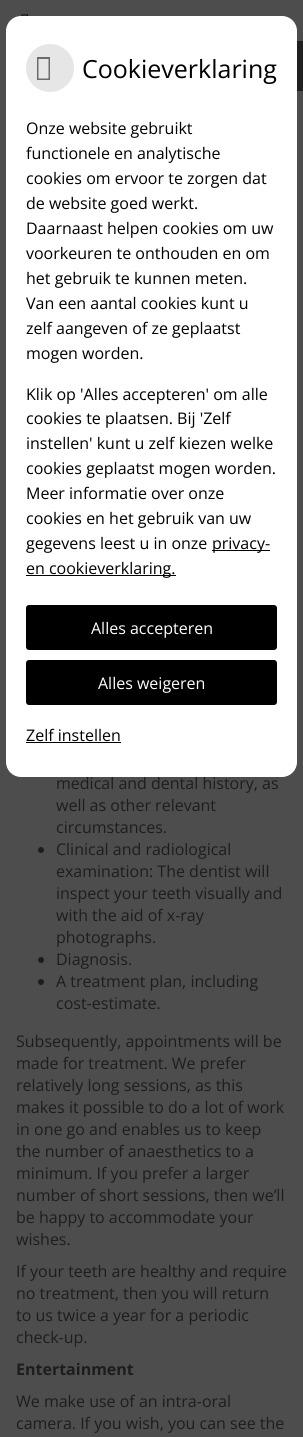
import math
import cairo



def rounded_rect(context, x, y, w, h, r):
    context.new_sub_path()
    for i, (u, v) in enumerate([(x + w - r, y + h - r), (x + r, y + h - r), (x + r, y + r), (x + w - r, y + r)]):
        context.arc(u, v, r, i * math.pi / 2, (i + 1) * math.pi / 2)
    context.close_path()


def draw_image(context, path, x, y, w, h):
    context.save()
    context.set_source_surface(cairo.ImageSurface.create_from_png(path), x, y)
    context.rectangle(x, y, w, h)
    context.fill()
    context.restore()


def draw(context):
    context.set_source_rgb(77 / 255, 77 / 255, 77 / 255)
    context.paint()
    draw_image(context, "images/1.png", 21, 14, 8, 2)
    context.set_source_rgb(32 / 255, 32 / 255, 32 / 255)
    context.rectangle(297, 41, 6, 50)
    context.fill()
    context.set_source_rgb(29 / 255, 29 / 255, 29 / 255)
    context.arc(41, 850, 3, 0, 2 * math.pi)
    context.fill()
    context.arc(41, 960, 3, 0, 2 * math.pi)
    context.fill()
    context.arc(41, 982, 3, 0, 2 * math.pi)
    context.fill()
    context.select_font_face("Open Sans")
    context.set_font_size(16)
    context.move_to(56, 789)
    context.show_text("medical and dental history, as")
    context.set_source_rgb(1, 1, 1)
    rounded_rect(context, 6, 16, 291, 761, 15)
    context.fill()
    context.set_source_rgb(0, 0, 0)
    context.move_to(26, 741)
    context.show_text("Zelf instellen")
    context.rectangle(26, 742, 95, 1)
    context.fill()
    rounded_rect(context, 26, 660, 251, 45, 3)
    context.fill()
    context.set_source_rgb(1, 1, 1)
    context.move_to(98, 689)
    context.show_text("Alles weigeren")
    context.set_source_rgb(0, 0, 0)
    rounded_rect(context, 26, 605, 251, 45, 3)
    context.fill()
    context.set_source_rgb(1, 1, 1)
    context.move_to(91, 634)
    context.show_text("Alles accepteren")
    context.set_source_rgb(0, 0, 0)
    context.rectangle(26, 575, 150, 1)
    context.fill()
    context.move_to(26, 574)
    context.show_text("en cookieverklaring.")
    context.rectangle(212, 550, 58, 1)
    context.fill()
    context.move_to(212, 549)
    context.show_text("privacy-")
    context.move_to(26, 549)
    context.show_text("gegevens leest u in onze")
    context.move_to(26, 524)
    context.show_text("cookies en het gebruik van uw")
    context.move_to(26, 499)
    context.show_text("Meer informatie over onze")
    context.move_to(26, 474)
    context.show_text("cookies geplaatst mogen worden.")
    context.move_to(26, 449)
    context.show_text("instellen' kunt u zelf kiezen welke")
    context.move_to(26, 424)
    context.show_text("cookies te plaatsen. Bij 'Zelf")
    context.move_to(26, 400)
    context.show_text("Klik op 'Alles accepteren' om alle")
    context.move_to(26, 359)
    context.show_text("mogen worden.")
    context.move_to(26, 334)
    context.show_text("zelf aangeven of ze geplaatst")
    context.move_to(26, 309)
    context.show_text("Van een aantal cookies kunt u")
    context.move_to(26, 284)
    context.show_text("het gebruik te kunnen meten.")
    context.move_to(26, 259)
    context.show_text("voorkeuren te onthouden en om")
    context.move_to(26, 234)
    context.show_text("Daarnaast helpen cookies om uw")
    context.move_to(26, 209)
    context.show_text("de website goed werkt.")
    context.move_to(26, 184)
    context.show_text("cookies om ervoor te zorgen dat")
    context.move_to(26, 159)
    context.show_text("functionele en analytische")
    context.move_to(26, 134)
    context.show_text("Onze website gebruikt")
    context.set_font_size(25)
    context.move_to(82, 78)
    context.show_text("Cookieverklaring")
    context.set_source_rgb(230 / 255, 230 / 255, 230 / 255)
    context.new_path()
    context.arc(50, 68, 24, 0, 2 * math.pi)
    context.fill()
    context.set_source_rgb(107 / 255, 107 / 255, 107 / 255)
    context.new_path()
    context.move_to(37, 80)
    context.line_to(37, 57)
    context.line_to(50, 57)
    context.line_to(50, 80)
    context.close_path()
    context.move_to(38.5, 78.5)
    context.line_to(48.5, 78.5)
    context.line_to(48.5, 59)
    context.line_to(38.5, 59)
    context.close_path()
    context.fill()
    context.set_font_size(16)
    context.set_source_rgb(29 / 255, 29 / 255, 29 / 255)
    context.move_to(56, 811)
    context.show_text("well as other relevant")
    context.move_to(56, 833)
    context.show_text("circumstances.")
    context.move_to(56, 855)
    context.show_text("Clinical and radiological")
    context.move_to(56, 877)
    context.show_text("examination: The dentist will")
    context.move_to(56, 899)
    context.show_text("inspect your teeth visually and")
    context.move_to(56, 921)
    context.show_text("with the aid of x-ray")
    context.move_to(56, 943)
    context.show_text("photographs.")
    context.move_to(56, 965)
    context.show_text("Diagnosis.")
    context.move_to(56, 987)
    context.show_text("A treatment plan, including")
    context.move_to(56, 1009)
    context.show_text("cost-estimate.")
    context.move_to(16, 1047)
    context.show_text("Subsequently, appointments will be")
    context.move_to(16, 1069)
    context.show_text("made for treatment. We prefer")
    context.move_to(16, 1091)
    context.show_text("relatively long sessions, as this")
    context.move_to(16, 1113)
    context.show_text("makes it possible to do a lot of work")
    context.move_to(16, 1135)
    context.show_text("in one go and enables us to keep")
    context.move_to(16, 1157)
    context.show_text("the number of anaesthetics to a")
    context.move_to(16, 1179)
    context.show_text("minimum. If you prefer a larger")
    context.move_to(16, 1201)
    context.show_text("number of short sessions, then we’ll")
    context.move_to(16, 1223)
    context.show_text("be happy to accommodate your")
    context.move_to(16, 1245)
    context.show_text("wishes.")
    context.move_to(16, 1277)
    context.show_text("If your teeth are healthy and require")
    context.move_to(16, 1299)
    context.show_text("no treatment, then you will return")
    context.move_to(16, 1321)
    context.show_text("to us twice a year for a periodic")
    context.move_to(16, 1343)
    context.show_text("check-up.")
    context.select_font_face("Open Sans", cairo.FontSlant.NORMAL, cairo.FontWeight.BOLD)
    context.move_to(16, 1375)
    context.show_text("Entertainment")
    context.select_font_face("Open Sans")
    context.move_to(16, 1407)
    context.show_text("We make use of an intra-oral")
    context.move_to(16, 1429)
    context.show_text("camera. If you wish, you can see the")


surface = cairo.ImageSurface(cairo.Format.RGB24, 303, 1437)
context = cairo.Context(surface)
options = cairo.FontOptions()
options.set_hint_metrics(cairo.HintMetrics.OFF)
options.set_hint_style(cairo.HintStyle.NONE)
context.set_font_options(options)
context.set_miter_limit(4)
draw(context)
surface.write_to_png("out.png")
